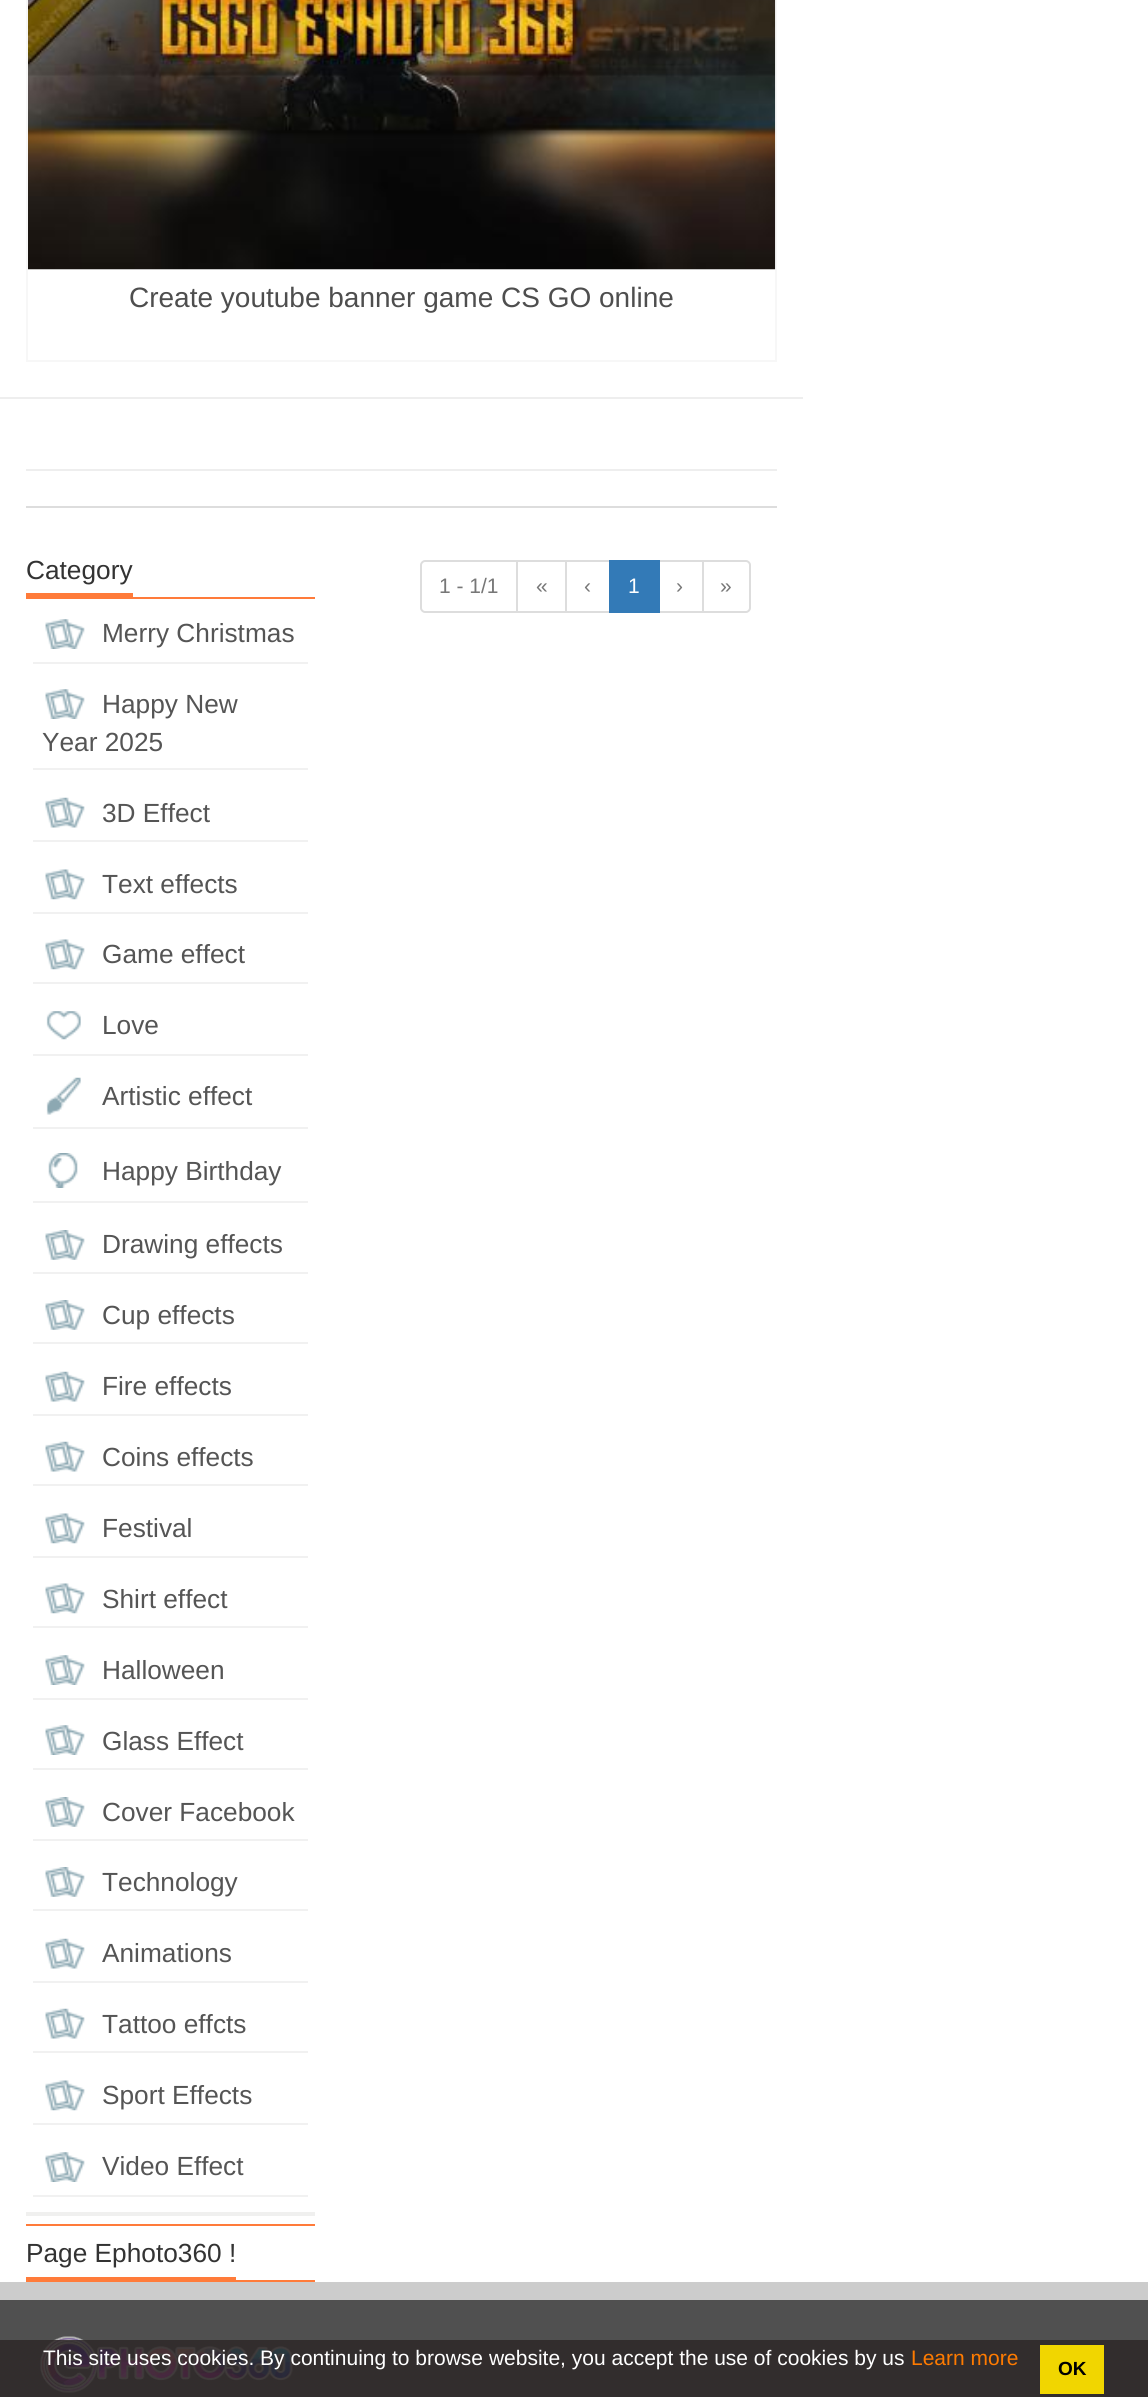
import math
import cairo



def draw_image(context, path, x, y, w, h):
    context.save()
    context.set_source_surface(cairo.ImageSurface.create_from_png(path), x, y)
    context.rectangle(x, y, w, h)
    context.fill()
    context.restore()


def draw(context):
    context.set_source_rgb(204 / 255, 204 / 255, 204 / 255)
    context.paint()
    context.set_source_rgb(1, 1, 1)
    context.rectangle(0, 0, 1148, 2282)
    context.fill()
    context.rectangle(27, -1, 749, 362)
    context.set_source_rgb(247 / 255, 247 / 255, 247 / 255)
    context.stroke()
    draw_image(context, "images/1.png", 28, 0, 748, 270)
    context.set_source_rgb(238 / 255, 238 / 255, 238 / 255)
    context.rectangle(0, 397, 803, 2)
    context.fill()
    context.rectangle(26, 469, 751, 2)
    context.fill()
    context.set_source_rgb(221 / 255, 221 / 255, 221 / 255)
    context.rectangle(26, 506, 751, 2)
    context.fill()
    context.new_path()
    context.move_to(425, 561)
    context.line_to(517, 561)
    context.line_to(517, 612)
    context.line_to(425, 612)
    context.curve_to(423, 612, 421, 610, 421, 608)
    context.line_to(421, 565)
    context.curve_to(421, 563, 423, 561, 425, 561)
    context.close_path()
    context.stroke()
    context.rectangle(517, 561, 49, 51)
    context.stroke()
    context.rectangle(566, 561, 44, 51)
    context.stroke()
    context.rectangle(659, 561, 44, 51)
    context.stroke()
    context.set_source_rgb(51 / 255, 122 / 255, 183 / 255)
    context.rectangle(609, 560, 51, 53)
    context.fill()
    context.set_source_rgb(1, 1, 1)
    context.new_path()
    context.move_to(703, 561)
    context.line_to(746, 561)
    context.curve_to(748, 561, 750, 563, 750, 565)
    context.line_to(750, 608)
    context.curve_to(750, 610, 748, 612, 746, 612)
    context.line_to(703, 612)
    context.close_path()
    context.fill_preserve()
    context.set_source_rgb(221 / 255, 221 / 255, 221 / 255)
    context.stroke()
    context.set_source_rgb(1, 123 / 255, 58 / 255)
    context.rectangle(26, 597, 289, 2)
    context.fill()
    context.rectangle(26, 593, 107, 4)
    context.fill()
    context.set_source_rgb(241 / 255, 241 / 255, 241 / 255)
    context.rectangle(33, 662, 275, 2)
    context.fill()
    draw_image(context, "images/2.png", 45, 619, 40, 30)
    context.rectangle(33, 768, 275, 2)
    context.fill()
    draw_image(context, "images/2.png", 45, 689, 40, 30)
    context.rectangle(33, 840, 275, 2)
    context.fill()
    draw_image(context, "images/3.png", 45, 797, 40, 31)
    context.rectangle(33, 912, 275, 2)
    context.fill()
    draw_image(context, "images/4.png", 45, 869, 40, 31)
    context.rectangle(33, 982, 275, 2)
    context.fill()
    draw_image(context, "images/4.png", 45, 939, 40, 31)
    context.rectangle(33, 1054, 275, 2)
    context.fill()
    draw_image(context, "images/5.png", 46, 1011, 35, 29)
    context.rectangle(33, 1127, 275, 2)
    context.fill()
    draw_image(context, "images/6.png", 46, 1077, 35, 38)
    context.rectangle(33, 1201, 275, 2)
    context.fill()
    draw_image(context, "images/7.png", 48, 1153, 30, 35)
    context.rectangle(33, 1272, 275, 2)
    context.fill()
    draw_image(context, "images/8.png", 45, 1230, 40, 30)
    context.rectangle(33, 1342, 275, 2)
    context.fill()
    draw_image(context, "images/9.png", 45, 1300, 40, 30)
    context.rectangle(33, 1414, 275, 2)
    context.fill()
    draw_image(context, "images/3.png", 45, 1371, 40, 31)
    context.rectangle(33, 1484, 275, 2)
    context.fill()
    draw_image(context, "images/3.png", 45, 1441, 40, 31)
    context.rectangle(33, 1556, 275, 2)
    context.fill()
    draw_image(context, "images/4.png", 45, 1513, 40, 31)
    context.rectangle(33, 1626, 275, 2)
    context.fill()
    draw_image(context, "images/4.png", 45, 1583, 40, 31)
    context.rectangle(33, 1698, 275, 2)
    context.fill()
    draw_image(context, "images/2.png", 45, 1655, 40, 30)
    context.rectangle(33, 1768, 275, 2)
    context.fill()
    draw_image(context, "images/2.png", 45, 1725, 40, 30)
    context.rectangle(33, 1839, 275, 2)
    context.fill()
    draw_image(context, "images/9.png", 45, 1797, 40, 30)
    context.rectangle(33, 1909, 275, 2)
    context.fill()
    draw_image(context, "images/9.png", 45, 1867, 40, 30)
    context.rectangle(33, 1981, 275, 2)
    context.fill()
    draw_image(context, "images/3.png", 45, 1938, 40, 31)
    context.rectangle(33, 2051, 275, 2)
    context.fill()
    draw_image(context, "images/3.png", 45, 2008, 40, 31)
    context.rectangle(33, 2123, 275, 2)
    context.fill()
    draw_image(context, "images/4.png", 45, 2080, 40, 31)
    context.rectangle(33, 2195, 275, 2)
    context.fill()
    draw_image(context, "images/2.png", 45, 2152, 40, 30)
    context.set_source_rgb(1, 123 / 255, 58 / 255)
    context.rectangle(26, 2224, 289, 2)
    context.fill()
    context.set_source_rgb(240 / 255, 240 / 255, 239 / 255)
    context.rectangle(26, 2212, 289, 4)
    context.fill()
    context.set_source_rgb(1, 123 / 255, 58 / 255)
    context.rectangle(26, 2280, 289, 2)
    context.fill()
    context.rectangle(26, 2277, 210, 3)
    context.fill()
    context.set_source_rgb(80 / 255, 80 / 255, 80 / 255)
    context.rectangle(0, 2300, 1148, 40)
    context.fill()
    context.set_source_rgb(50 / 255, 45 / 255, 45 / 255)
    context.rectangle(0, 2340, 1148, 57)
    context.fill()
    draw_image(context, "images/10.png", 40, 2336, 253, 57)
    context.set_source_rgb(241 / 255, 214 / 255, 0)
    context.rectangle(1040, 2345, 64, 49)
    context.fill()
    context.select_font_face("Liberation Sans")
    context.set_font_size(28)
    context.set_source_rgb(78 / 255, 78 / 255, 78 / 255)
    context.move_to(129, 307)
    context.show_text("Create youtube banner game CS GO online")
    context.set_font_size(21)
    context.set_source_rgb(119 / 255, 119 / 255, 119 / 255)
    context.move_to(439, 593)
    context.show_text("1 - 1/1")
    context.move_to(536, 593)
    context.show_text("«")
    context.move_to(584, 593)
    context.show_text("‹")
    context.set_source_rgb(1, 1, 1)
    context.move_to(628, 593)
    context.show_text("1")
    context.set_source_rgb(119 / 255, 119 / 255, 119 / 255)
    context.move_to(676, 593)
    context.show_text("›")
    context.move_to(720, 593)
    context.show_text("»")
    context.set_font_size(26.25)
    context.set_source_rgb(51 / 255, 51 / 255, 51 / 255)
    context.move_to(26, 579)
    context.show_text("Category")
    context.set_source_rgb(85 / 255, 85 / 255, 85 / 255)
    context.move_to(102, 642)
    context.show_text("Merry Christmas")
    context.move_to(102, 713)
    context.show_text("Happy New")
    context.move_to(42, 751)
    context.show_text("Year 2025")
    context.move_to(102, 822)
    context.show_text("3D Effect")
    context.move_to(102, 893)
    context.show_text("Text effects")
    context.move_to(102, 963)
    context.show_text("Game effect")
    context.move_to(102, 1034)
    context.show_text("Love")
    context.move_to(102, 1105)
    context.show_text("Artistic effect")
    context.move_to(102, 1180)
    context.show_text("Happy Birthday")
    context.move_to(102, 1253)
    context.show_text("Drawing effects")
    context.move_to(102, 1324)
    context.show_text("Cup effects")
    context.move_to(102, 1395)
    context.show_text("Fire effects")
    context.move_to(102, 1466)
    context.show_text("Coins effects")
    context.move_to(102, 1537)
    context.show_text("Festival")
    context.move_to(102, 1608)
    context.show_text("Shirt effect")
    context.move_to(102, 1679)
    context.show_text("Halloween")
    context.move_to(102, 1750)
    context.show_text("Glass Effect")
    context.move_to(102, 1821)
    context.show_text("Cover Facebook")
    context.move_to(102, 1891)
    context.show_text("Technology")
    context.move_to(102, 1962)
    context.show_text("Animations")
    context.move_to(102, 2033)
    context.show_text("Tattoo effcts")
    context.move_to(102, 2104)
    context.show_text("Sport Effects")
    context.move_to(102, 2175)
    context.show_text("Video Effect")
    context.set_source_rgb(51 / 255, 51 / 255, 51 / 255)
    context.move_to(26, 2262)
    context.show_text("Page Ephoto360 !")
    context.set_font_size(21)
    context.set_source_rgb(1, 1, 1)
    context.move_to(43, 2365)
    context.show_text("This site uses cookies. By continuing to browse website, you accept the use of cookies by us")
    context.set_source_rgb(1, 123 / 255, 0)
    context.move_to(911, 2365)
    context.show_text("Learn more")
    context.select_font_face("Liberation Sans", cairo.FontSlant.NORMAL, cairo.FontWeight.BOLD)
    context.set_font_size(19)
    context.set_source_rgb(0, 0, 0)
    context.move_to(1058, 2375)
    context.show_text("OK")


surface = cairo.ImageSurface(cairo.Format.RGB24, 1148, 2397)
context = cairo.Context(surface)
options = cairo.FontOptions()
options.set_hint_metrics(cairo.HintMetrics.OFF)
options.set_hint_style(cairo.HintStyle.NONE)
context.set_font_options(options)
context.set_miter_limit(4)
draw(context)
surface.write_to_png("out.png")
